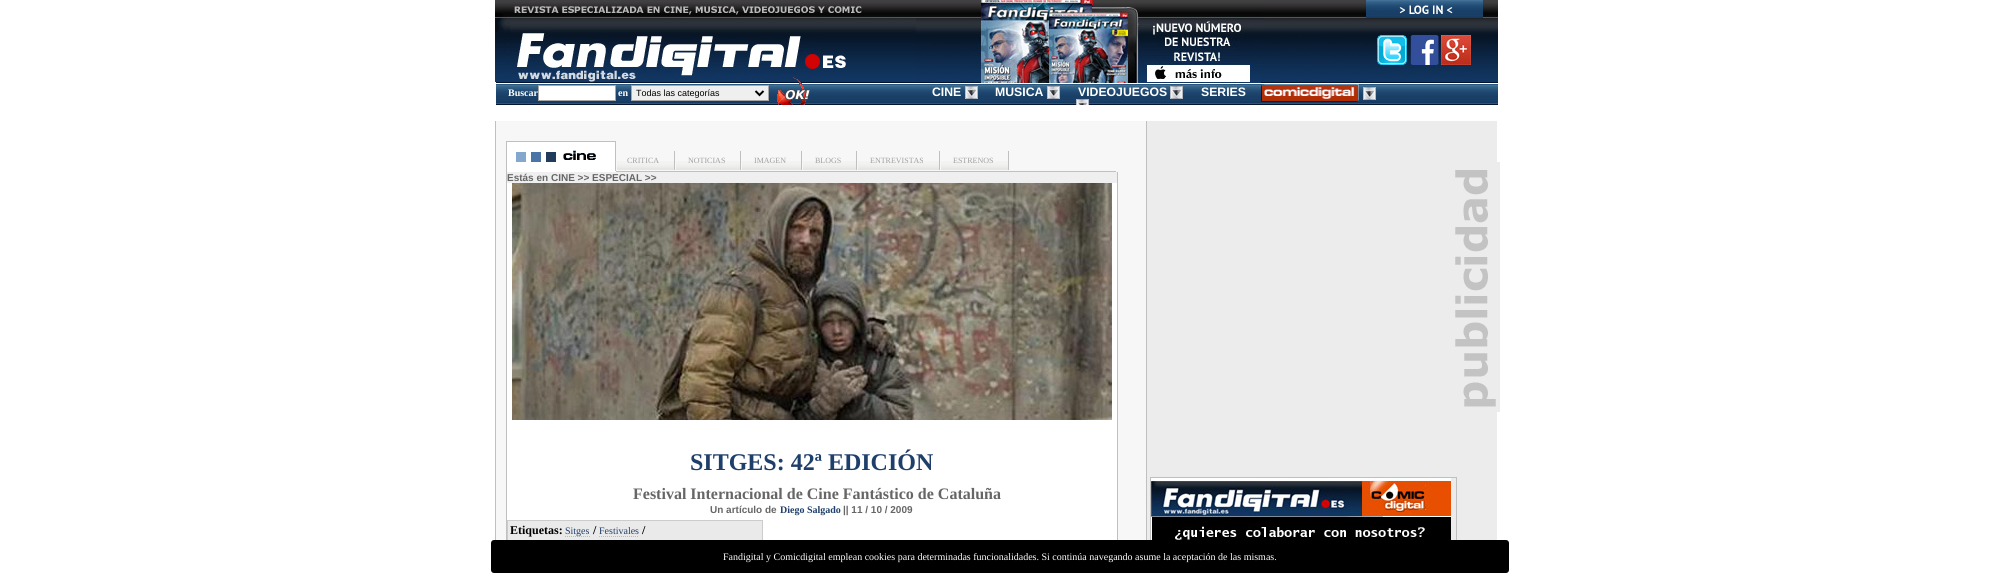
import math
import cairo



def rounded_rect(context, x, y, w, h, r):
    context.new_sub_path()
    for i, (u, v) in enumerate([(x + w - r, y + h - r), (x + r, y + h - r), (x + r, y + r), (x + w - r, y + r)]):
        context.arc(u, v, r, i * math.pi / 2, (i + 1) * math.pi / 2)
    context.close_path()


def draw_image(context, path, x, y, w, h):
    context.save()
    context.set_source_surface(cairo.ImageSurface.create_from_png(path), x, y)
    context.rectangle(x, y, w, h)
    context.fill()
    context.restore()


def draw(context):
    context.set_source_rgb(1, 1, 1)
    context.paint()
    draw_image(context, "images/6.png", 495, 0, 1003, 17)
    context.set_source_rgb(78 / 255, 88 / 255, 102 / 255)
    context.rectangle(495, 17, 1003, 1)
    context.fill()
    draw_image(context, "images/8.png", 916, 18, 582, 64)
    draw_image(context, "images/10.png", 496, 82, 1002, 23)
    draw_image(context, "images/1.png", 981, 0, 280, 83)
    draw_image(context, "images/2.png", 1366, 0, 117, 18)
    draw_image(context, "images/3.png", 1377, 35, 30, 30)
    draw_image(context, "images/4.png", 1410, 35, 29, 30)
    draw_image(context, "images/5.png", 1441, 35, 30, 30)
    draw_image(context, "images/7.png", 495, 6, 367, 11)
    draw_image(context, "images/9.png", 495, 18, 421, 64)
    context.set_source_rgb(1, 1, 1)
    context.rectangle(538.5, 85.5, 77, 15)
    context.fill_preserve()
    context.set_source_rgb(166 / 255, 166 / 255, 166 / 255)
    context.set_line_width(1)
    context.stroke()
    context.set_source_rgb(239 / 255, 239 / 255, 239 / 255)
    context.rectangle(631.5, 85.5, 137, 15)
    context.fill_preserve()
    context.set_source_rgb(166 / 255, 166 / 255, 166 / 255)
    context.stroke()
    context.new_path()
    context.move_to(755.5, 91)
    context.line_to(759.5, 95)
    context.line_to(763.5, 91)
    context.set_source_rgb(0, 0, 0)
    context.set_line_width(2)
    context.stroke()
    draw_image(context, "images/11.png", 777, 77, 33, 28)
    draw_image(context, "images/12.png", 965, 86, 13, 13)
    draw_image(context, "images/12.png", 1047, 86, 13, 13)
    draw_image(context, "images/12.png", 1170, 86, 13, 13)
    draw_image(context, "images/13.png", 1076, 99, 13, 6)
    draw_image(context, "images/14.png", 1261, 84, 98, 18)
    draw_image(context, "images/12.png", 1363, 87, 13, 13)
    context.set_source_rgb(247 / 255, 247 / 255, 247 / 255)
    context.rectangle(496, 121, 650, 419)
    context.fill()
    context.set_source_rgb(192 / 255, 192 / 255, 192 / 255)
    context.rectangle(495, 121, 1, 419)
    context.fill()
    context.set_source_rgb(1, 1, 1)
    context.rectangle(507, 142, 108, 29)
    context.fill()
    context.set_source_rgb(192 / 255, 192 / 255, 192 / 255)
    context.rectangle(506, 141, 110, 1)
    context.fill()
    context.rectangle(615, 141, 1, 31)
    context.fill()
    context.set_source_rgb(1, 1, 1)
    context.rectangle(506, 171, 110, 1)
    context.fill()
    context.set_source_rgb(192 / 255, 192 / 255, 192 / 255)
    context.rectangle(506, 141, 1, 31)
    context.fill()
    draw_image(context, "images/15.png", 516, 150, 80, 12)
    context.rectangle(616, 171, 500, 1)
    context.fill()
    context.rectangle(674, 151, 1, 19)
    context.fill()
    context.rectangle(740, 151, 1, 19)
    context.fill()
    context.rectangle(801, 151, 1, 19)
    context.fill()
    context.rectangle(856, 151, 1, 19)
    context.fill()
    context.rectangle(939, 151, 1, 19)
    context.fill()
    context.rectangle(1008, 151, 1, 19)
    context.fill()
    draw_image(context, "images/16.png", 617, 161, 57, 9)
    draw_image(context, "images/17.png", 676, 161, 64, 9)
    draw_image(context, "images/18.png", 742, 161, 59, 9)
    draw_image(context, "images/19.png", 803, 161, 53, 9)
    draw_image(context, "images/20.png", 858, 161, 81, 9)
    draw_image(context, "images/21.png", 941, 161, 67, 9)
    context.set_source_rgb(1, 1, 1)
    context.rectangle(507, 183, 610, 357)
    context.fill()
    context.set_source_rgb(192 / 255, 192 / 255, 192 / 255)
    context.rectangle(1117, 172, 1, 368)
    context.fill()
    context.rectangle(506, 172, 1, 368)
    context.fill()
    context.set_source_rgb(239 / 255, 239 / 255, 239 / 255)
    context.rectangle(507, 172, 610, 11)
    context.fill()
    draw_image(context, "images/22.png", 512, 183, 600, 237)
    context.set_source_rgb(234 / 255, 234 / 255, 234 / 255)
    context.rectangle(507.5, 520.5, 255, 20)
    context.fill_preserve()
    context.set_source_rgb(204 / 255, 204 / 255, 204 / 255)
    context.set_line_width(1)
    context.stroke()
    context.new_path()
    context.move_to(565, 536.5)
    context.line_to(590, 536.5)
    context.set_source_rgb(187 / 255, 188 / 255, 184 / 255)
    context.set_dash([1, 1])
    context.stroke()
    context.new_path()
    context.move_to(599, 536.5)
    context.line_to(639, 536.5)
    context.stroke()
    context.set_source_rgb(236 / 255, 236 / 255, 236 / 255)
    context.rectangle(1147, 121, 350, 419)
    context.fill()
    context.set_source_rgb(192 / 255, 192 / 255, 192 / 255)
    context.rectangle(1146, 121, 1, 419)
    context.fill()
    draw_image(context, "images/23.png", 1455, 162, 45, 250)
    context.rectangle(1150.5, 477.5, 306, 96)
    context.set_source_rgb(191 / 255, 191 / 255, 191 / 255)
    context.set_dash([])
    context.stroke()
    draw_image(context, "images/24.png", 1151, 478, 300, 62)
    context.set_source_rgb(0, 0, 0)
    rounded_rect(context, 491, 540, 1018, 33, 3)
    context.fill()
    context.select_font_face("Liberation Serif", cairo.FontSlant.NORMAL, cairo.FontWeight.BOLD)
    context.set_font_size(10)
    context.set_source_rgb(1, 1, 1)
    context.move_to(508, 96)
    context.show_text("Buscar")
    context.move_to(618, 96)
    context.show_text("en")
    context.select_font_face("Liberation Sans")
    context.set_font_size(9)
    context.set_source_rgb(0, 0, 0)
    context.move_to(636, 96)
    context.show_text("Todas las categorías")
    context.select_font_face("Liberation Sans", cairo.FontSlant.NORMAL, cairo.FontWeight.BOLD)
    context.set_font_size(12.25)
    context.set_source_rgb(1, 1, 1)
    context.move_to(932, 96)
    context.show_text("CINE")
    context.move_to(995, 96)
    context.show_text("MUSICA")
    context.move_to(1078, 96)
    context.show_text("VIDEOJUEGOS")
    context.move_to(1201, 96)
    context.show_text("SERIES")
    context.select_font_face("Liberation Serif")
    context.set_font_size(8)
    context.set_source_rgb(160 / 255, 160 / 255, 160 / 255)
    context.move_to(627, 163)
    context.show_text("CRITICA")
    context.move_to(688, 163)
    context.show_text("NOTICIAS")
    context.move_to(754, 163)
    context.show_text("IMAGEN")
    context.move_to(815, 163)
    context.show_text("BLOGS")
    context.move_to(870, 163)
    context.show_text("ENTREVISTAS")
    context.move_to(953, 163)
    context.show_text("ESTRENOS")
    context.select_font_face("Liberation Sans", cairo.FontSlant.NORMAL, cairo.FontWeight.BOLD)
    context.set_font_size(10)
    context.set_source_rgb(102 / 255, 102 / 255, 102 / 255)
    context.move_to(507, 181)
    context.show_text("Estás en CINE >> ESPECIAL >>")
    context.select_font_face("Liberation Serif", cairo.FontSlant.NORMAL, cairo.FontWeight.BOLD)
    context.set_font_size(24)
    context.set_source_rgb(31 / 255, 63 / 255, 107 / 255)
    context.move_to(690, 470)
    context.show_text("SITGES: 42ª EDICIÓN")
    context.set_font_size(16)
    context.set_source_rgb(102 / 255, 102 / 255, 102 / 255)
    context.move_to(633, 499)
    context.show_text("Festival Internacional de Cine Fantástico de Cataluña")
    context.select_font_face("Liberation Sans", cairo.FontSlant.NORMAL, cairo.FontWeight.BOLD)
    context.set_font_size(10)
    context.move_to(710, 513)
    context.show_text("Un artículo de")
    context.select_font_face("Liberation Serif", cairo.FontSlant.NORMAL, cairo.FontWeight.BOLD)
    context.set_source_rgb(31 / 255, 63 / 255, 107 / 255)
    context.move_to(780, 513)
    context.show_text("Diego Salgado")
    context.select_font_face("Liberation Sans", cairo.FontSlant.NORMAL, cairo.FontWeight.BOLD)
    context.set_source_rgb(102 / 255, 102 / 255, 102 / 255)
    context.move_to(843, 513)
    context.show_text("|| 11 / 10 / 2009")
    context.select_font_face("Liberation Serif", cairo.FontSlant.NORMAL, cairo.FontWeight.BOLD)
    context.set_font_size(12)
    context.set_source_rgb(0, 0, 0)
    context.move_to(510, 534)
    context.show_text("Etiquetas:")
    context.select_font_face("Liberation Serif")
    context.set_font_size(10)
    context.set_source_rgb(31 / 255, 63 / 255, 107 / 255)
    context.move_to(565, 534)
    context.show_text("Sitges")
    context.select_font_face("Liberation Serif", cairo.FontSlant.NORMAL, cairo.FontWeight.BOLD)
    context.set_font_size(12)
    context.set_source_rgb(0, 0, 0)
    context.move_to(593, 534)
    context.show_text("/")
    context.select_font_face("Liberation Serif")
    context.set_font_size(10)
    context.set_source_rgb(31 / 255, 63 / 255, 107 / 255)
    context.move_to(599, 534)
    context.show_text("Festivales")
    context.select_font_face("Liberation Serif", cairo.FontSlant.NORMAL, cairo.FontWeight.BOLD)
    context.set_font_size(12)
    context.set_source_rgb(0, 0, 0)
    context.move_to(642, 534)
    context.show_text("/")
    context.select_font_face("Liberation Serif")
    context.set_font_size(10)
    context.set_source_rgb(1, 1, 1)
    context.move_to(723, 560)
    context.show_text("Fandigital y Comicdigital emplean cookies para determinadas funcionalidades. Si continúa navegando asume la aceptación de las mismas.")


surface = cairo.ImageSurface(cairo.Format.RGB24, 1992, 573)
context = cairo.Context(surface)
options = cairo.FontOptions()
options.set_hint_metrics(cairo.HintMetrics.OFF)
options.set_hint_style(cairo.HintStyle.NONE)
context.set_font_options(options)
context.set_miter_limit(4)
draw(context)
surface.write_to_png("out.png")
